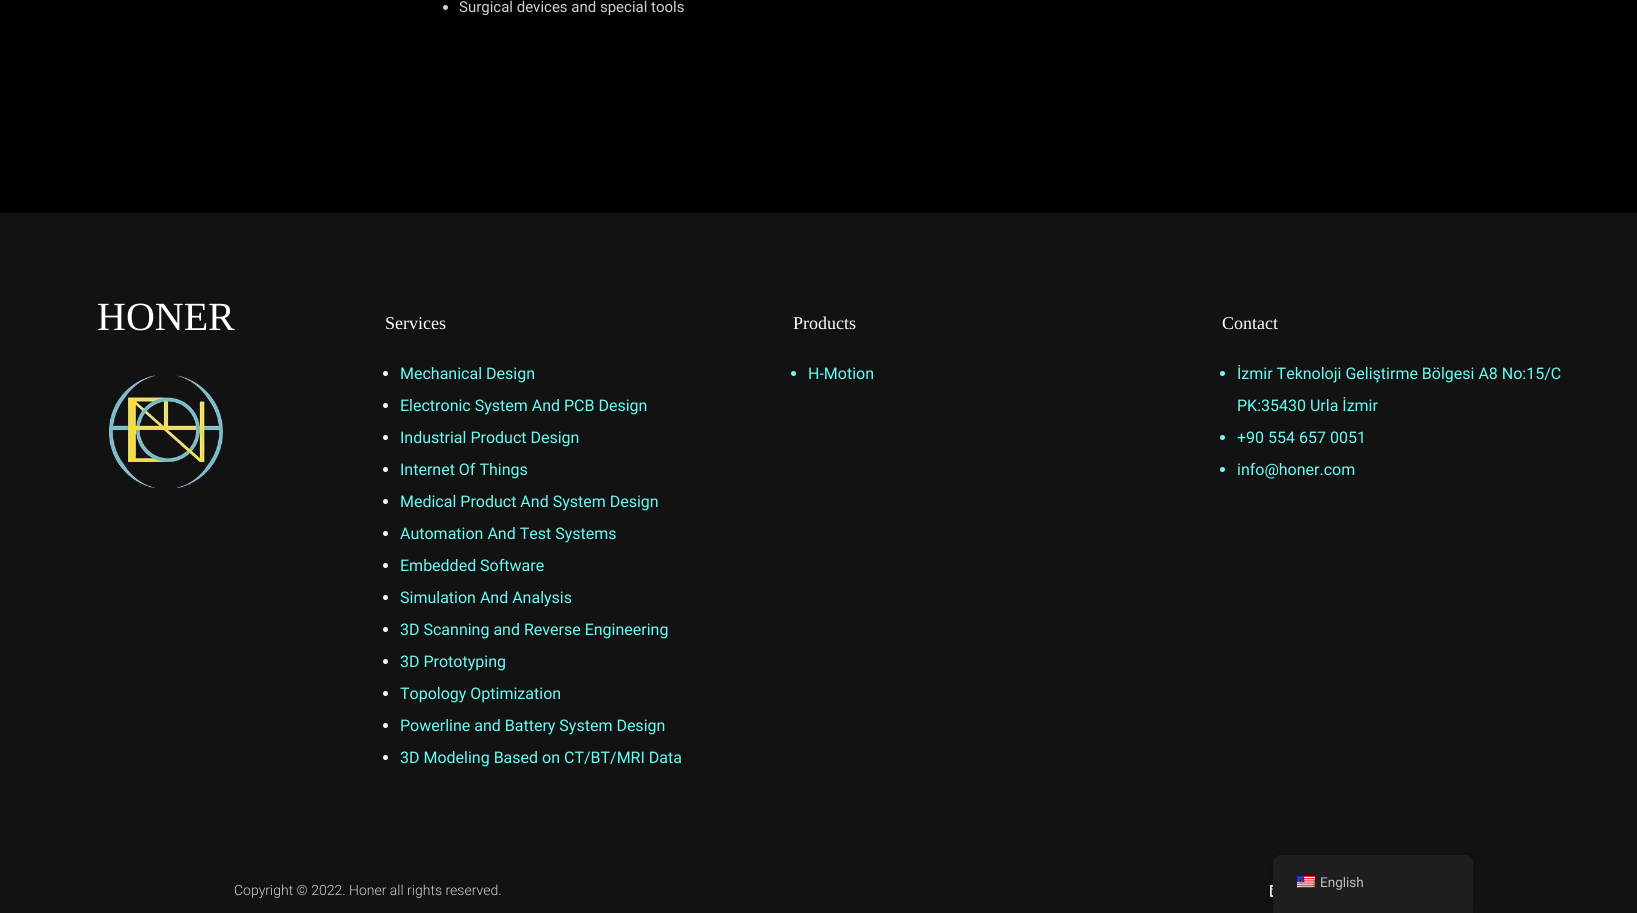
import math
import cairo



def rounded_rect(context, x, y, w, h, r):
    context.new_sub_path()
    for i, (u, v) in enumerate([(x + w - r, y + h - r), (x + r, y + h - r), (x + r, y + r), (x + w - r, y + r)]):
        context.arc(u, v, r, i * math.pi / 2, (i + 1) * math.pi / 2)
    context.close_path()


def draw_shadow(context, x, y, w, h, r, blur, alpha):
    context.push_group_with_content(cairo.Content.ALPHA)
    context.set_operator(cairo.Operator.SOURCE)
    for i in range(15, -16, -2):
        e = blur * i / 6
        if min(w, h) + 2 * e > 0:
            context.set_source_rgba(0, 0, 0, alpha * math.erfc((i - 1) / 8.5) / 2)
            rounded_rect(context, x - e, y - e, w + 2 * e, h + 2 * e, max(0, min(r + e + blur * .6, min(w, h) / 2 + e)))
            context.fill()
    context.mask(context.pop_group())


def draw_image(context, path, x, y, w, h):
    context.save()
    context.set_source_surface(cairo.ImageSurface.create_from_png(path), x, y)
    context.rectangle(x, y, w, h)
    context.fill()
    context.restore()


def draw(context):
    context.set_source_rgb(0, 0, 0)
    context.paint()
    context.set_source_rgb(208 / 255, 208 / 255, 208 / 255)
    context.arc(445.5, 7.5, 2.5, 0, 2 * math.pi)
    context.fill()
    context.set_source_rgb(18 / 255, 18 / 255, 18 / 255)
    context.rectangle(0, 213, 1637, 700)
    context.fill()
    draw_image(context, "images/1.png", 108, 375, 115, 114)
    context.set_source_rgb(1, 1, 1)
    context.arc(385.5, 373.5, 2.5, 0, 2 * math.pi)
    context.fill()
    context.arc(385.5, 405.5, 2.5, 0, 2 * math.pi)
    context.fill()
    context.arc(385.5, 437.5, 2.5, 0, 2 * math.pi)
    context.fill()
    context.arc(385.5, 469.5, 2.5, 0, 2 * math.pi)
    context.fill()
    context.arc(385.5, 501.5, 2.5, 0, 2 * math.pi)
    context.fill()
    context.arc(385.5, 533.5, 2.5, 0, 2 * math.pi)
    context.fill()
    context.arc(385.5, 565.5, 2.5, 0, 2 * math.pi)
    context.fill()
    context.arc(385.5, 597.5, 2.5, 0, 2 * math.pi)
    context.fill()
    context.arc(385.5, 629.5, 2.5, 0, 2 * math.pi)
    context.fill()
    context.arc(385.5, 661.5, 2.5, 0, 2 * math.pi)
    context.fill()
    context.arc(385.5, 693.5, 2.5, 0, 2 * math.pi)
    context.fill()
    context.arc(385.5, 725.5, 2.5, 0, 2 * math.pi)
    context.fill()
    context.arc(385.5, 757.5, 2.5, 0, 2 * math.pi)
    context.fill()
    context.set_source_rgb(102 / 255, 252 / 255, 241 / 255)
    context.arc(793.5, 373.5, 2.5, 0, 2 * math.pi)
    context.fill()
    context.arc(1222.5, 373.5, 2.5, 0, 2 * math.pi)
    context.fill()
    context.arc(1222.5, 437.5, 2.5, 0, 2 * math.pi)
    context.fill()
    context.arc(1222.5, 469.5, 2.5, 0, 2 * math.pi)
    context.fill()
    draw_image(context, "images/2.png", 1270, 885, 3, 12)
    context.set_source_rgb(0, 0, 0)
    draw_shadow(context, 1273, 855, 200, 58, 8, 4, 0.25)
    context.set_source_rgb(30 / 255, 30 / 255, 30 / 255)
    context.new_path()
    context.move_to(1281, 855)
    context.line_to(1465, 855)
    context.curve_to(1469.5, 855, 1473, 858.5, 1473, 863)
    context.line_to(1473, 913)
    context.line_to(1273, 913)
    context.line_to(1273, 863)
    context.curve_to(1273, 858.5, 1276.5, 855, 1281, 855)
    context.close_path()
    context.fill()
    draw_image(context, "images/3.png", 1297, 876, 18, 12)
    context.select_font_face("Roboto")
    context.set_font_size(15)
    context.set_source_rgb(208 / 255, 208 / 255, 208 / 255)
    context.move_to(459, 12)
    context.show_text("Surgical devices and special tools")
    context.select_font_face("Liberation Serif")
    context.set_font_size(40)
    context.set_source_rgb(1, 1, 1)
    context.move_to(97, 330)
    context.show_text("HONER")
    context.set_font_size(18)
    context.move_to(385, 329)
    context.show_text("Services")
    context.select_font_face("Roboto")
    context.set_font_size(16)
    context.set_source_rgb(102 / 255, 252 / 255, 241 / 255)
    context.move_to(400, 379)
    context.show_text("Mechanical Design")
    context.move_to(400, 411)
    context.show_text("Electronic System And PCB Design")
    context.move_to(400, 443)
    context.show_text("Industrial Product Design")
    context.move_to(400, 475)
    context.show_text("Internet Of Things")
    context.move_to(400, 507)
    context.show_text("Medical Product And System Design")
    context.move_to(400, 539)
    context.show_text("Automation And Test Systems")
    context.move_to(400, 571)
    context.show_text("Embedded Software")
    context.move_to(400, 603)
    context.show_text("Simulation And Analysis")
    context.move_to(400, 635)
    context.show_text("3D Scanning and Reverse Engineering")
    context.move_to(400, 667)
    context.show_text("3D Prototyping")
    context.move_to(400, 699)
    context.show_text("Topology Optimization")
    context.move_to(400, 731)
    context.show_text("Powerline and Battery System Design")
    context.move_to(400, 763)
    context.show_text("3D Modeling Based on CT/BT/MRI Data")
    context.select_font_face("Liberation Serif")
    context.set_font_size(18)
    context.set_source_rgb(1, 1, 1)
    context.move_to(793, 329)
    context.show_text("Products")
    context.select_font_face("Roboto")
    context.set_font_size(16)
    context.set_source_rgb(102 / 255, 252 / 255, 241 / 255)
    context.move_to(808, 379)
    context.show_text("H-Motion")
    context.select_font_face("Liberation Serif")
    context.set_font_size(18)
    context.set_source_rgb(1, 1, 1)
    context.move_to(1222, 329)
    context.show_text("Contact")
    context.select_font_face("Roboto")
    context.set_font_size(16)
    context.set_source_rgb(102 / 255, 252 / 255, 241 / 255)
    context.move_to(1237, 379)
    context.show_text("İzmir Teknoloji Geliştirme Bölgesi A8 No:15/C")
    context.move_to(1237, 411)
    context.show_text("PK:35430 Urla İzmir")
    context.move_to(1237, 443)
    context.show_text("+90 554 657 0051")
    context.move_to(1237, 475)
    context.show_text("info@honer.com")
    context.select_font_face("Roboto Light")
    context.set_font_size(14)
    context.set_source_rgb(208 / 255, 208 / 255, 208 / 255)
    context.move_to(234, 895)
    context.show_text("Copyright © 2022. Honer all rights reserved.")
    context.select_font_face("Roboto")
    context.set_font_size(13.5)
    context.set_source_rgb(189 / 255, 189 / 255, 189 / 255)
    context.move_to(1320, 887)
    context.show_text("English")


surface = cairo.ImageSurface(cairo.Format.RGB24, 1637, 913)
context = cairo.Context(surface)
options = cairo.FontOptions()
options.set_hint_metrics(cairo.HintMetrics.OFF)
options.set_hint_style(cairo.HintStyle.NONE)
context.set_font_options(options)
context.set_miter_limit(4)
draw(context)
surface.write_to_png("out.png")
